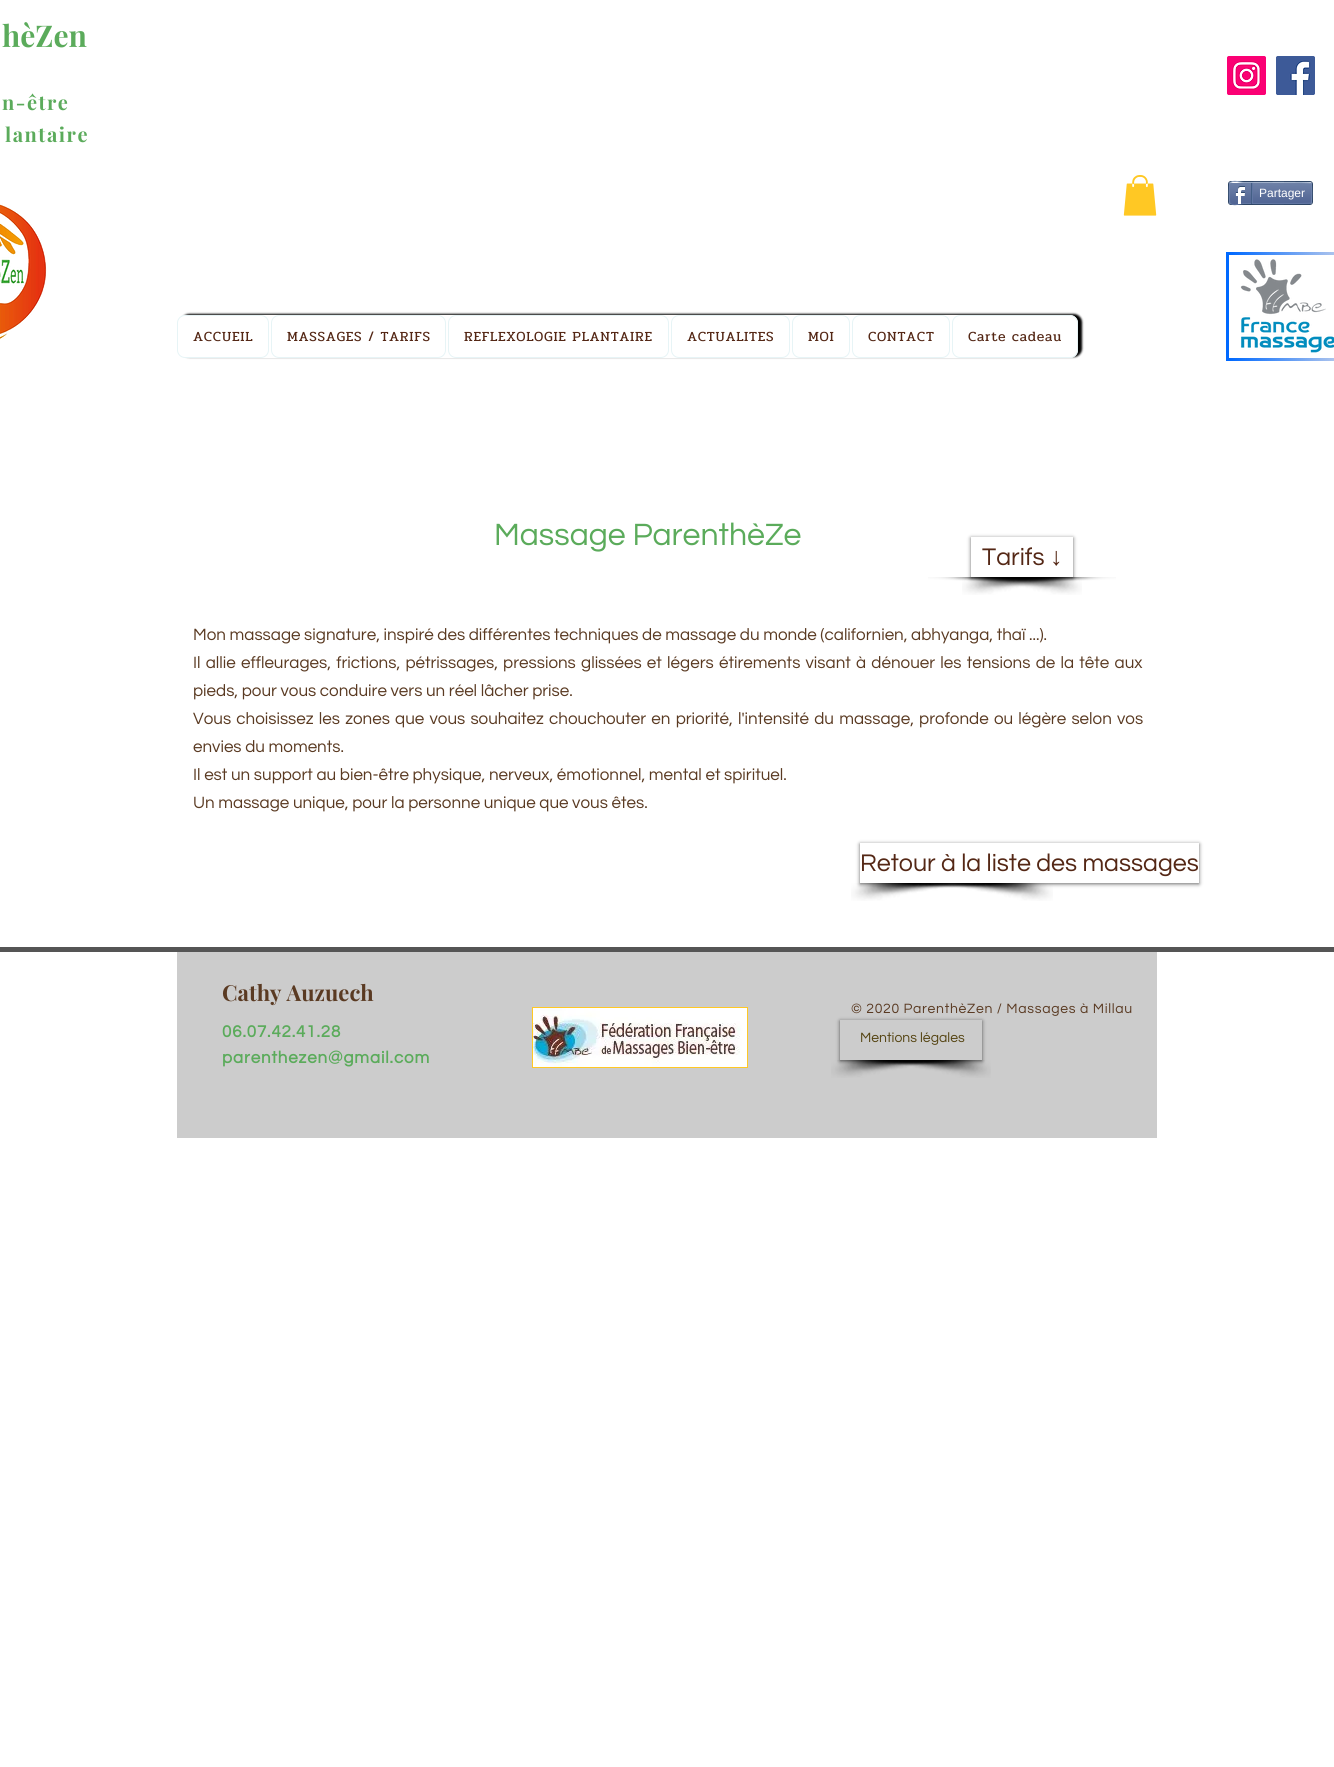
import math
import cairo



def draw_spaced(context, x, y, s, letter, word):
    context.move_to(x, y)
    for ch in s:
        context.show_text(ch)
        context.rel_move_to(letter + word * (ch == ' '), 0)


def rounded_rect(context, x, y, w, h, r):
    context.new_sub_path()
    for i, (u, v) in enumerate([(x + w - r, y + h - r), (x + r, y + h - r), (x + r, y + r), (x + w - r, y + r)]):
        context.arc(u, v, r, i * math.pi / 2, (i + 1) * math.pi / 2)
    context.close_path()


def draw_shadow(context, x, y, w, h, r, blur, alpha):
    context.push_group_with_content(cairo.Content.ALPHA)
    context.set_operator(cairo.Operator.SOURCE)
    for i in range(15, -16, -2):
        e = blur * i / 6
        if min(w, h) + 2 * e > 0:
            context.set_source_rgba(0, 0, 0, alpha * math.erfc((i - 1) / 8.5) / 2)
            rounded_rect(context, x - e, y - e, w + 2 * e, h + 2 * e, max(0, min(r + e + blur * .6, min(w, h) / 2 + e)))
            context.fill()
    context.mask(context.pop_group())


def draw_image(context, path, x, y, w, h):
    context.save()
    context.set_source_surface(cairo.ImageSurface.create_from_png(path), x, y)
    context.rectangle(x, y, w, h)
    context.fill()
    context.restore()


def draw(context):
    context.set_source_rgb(1, 1, 1)
    context.paint()
    draw_image(context, "images/1.png", 1227, 56, 39, 39)
    draw_image(context, "images/2.png", 1276, 56, 39, 39)
    draw_image(context, "images/3.png", 1123, 175, 34, 41)
    rounded_rect(context, 1228.5, 181.5, 84, 23, 2.5)
    context.set_source_rgb(45 / 255, 69 / 255, 101 / 255)
    context.set_line_width(1)
    context.stroke()
    draw_image(context, "images/4.png", 1229, 183, 83, 21)
    context.new_path()
    context.move_to(1230, 183)
    context.curve_to(1233.5, 179.5, 1239.5, 182.5, 1244, 182.5)
    context.curve_to(1251, 182.5, 1310, 182, 1311, 183)
    context.set_source_rgb(154 / 255, 171 / 255, 198 / 255)
    context.stroke()
    context.new_path()
    context.move_to(1311, 183)
    context.curve_to(1312, 183.5, 1312, 202.5, 1311, 203)
    context.set_source_rgb(111 / 255, 131 / 255, 173 / 255)
    context.stroke()
    context.new_path()
    context.move_to(1311, 203)
    context.curve_to(1310, 204, 1251, 203.5, 1244, 203.5)
    context.curve_to(1239.5, 203.5, 1233.5, 206.5, 1230, 203)
    context.set_source_rgb(97 / 255, 118 / 255, 163 / 255)
    context.stroke()
    context.new_path()
    context.move_to(1230, 203)
    context.curve_to(1229, 202.5, 1229, 183.5, 1230, 183)
    context.set_source_rgb(111 / 255, 131 / 255, 173 / 255)
    context.stroke()
    draw_image(context, "images/5.png", 1235, 186, 10, 18)
    context.set_source_rgb(66 / 255, 94 / 255, 133 / 255)
    context.rectangle(1251, 183, 1, 21)
    context.fill()
    context.set_source_rgb(97 / 255, 118 / 255, 163 / 255)
    context.rectangle(1252, 183, 1, 20)
    context.fill()
    draw_image(context, "images/6.png", 0, 203, 47, 136)
    draw_image(context, "images/8.png", 1240, 259, 94, 94)
    draw_image(context, "images/7.png", 1226, 252, 108, 109)
    context.set_source_rgb(0, 0, 0)
    draw_shadow(context, 181, 314, 901, 43, 8, 1, 1)
    context.set_source_rgb(1, 1, 1)
    rounded_rect(context, 177, 315, 901, 43, 8)
    context.fill()
    rounded_rect(context, 177.5, 315.5, 91, 42, 7.5)
    context.set_source_rgb(231 / 255, 244 / 255, 246 / 255)
    context.stroke()
    rounded_rect(context, 271.5, 315.5, 174, 42, 7.5)
    context.stroke()
    rounded_rect(context, 448.5, 315.5, 220, 42, 7.5)
    context.stroke()
    rounded_rect(context, 671.5, 315.5, 118, 42, 7.5)
    context.stroke()
    rounded_rect(context, 792.5, 315.5, 57, 42, 7.5)
    context.stroke()
    rounded_rect(context, 852.5, 315.5, 97, 42, 7.5)
    context.stroke()
    rounded_rect(context, 952.5, 315.5, 125, 42, 7.5)
    context.stroke()
    draw_image(context, "images/10.png", 962, 577, 154, 18)
    draw_image(context, "images/9.png", 928, 577, 154, 18)
    context.save()
    context.set_fill_rule(cairo.FillRule.EVEN_ODD)
    context.new_path()
    context.move_to(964, 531)
    context.line_to(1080, 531)
    context.line_to(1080, 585)
    context.line_to(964, 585)
    context.close_path()
    context.move_to(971, 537)
    context.line_to(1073, 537)
    context.line_to(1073, 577)
    context.line_to(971, 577)
    context.close_path()
    context.clip()
    context.set_source_rgb(0, 0, 0)
    draw_shadow(context, 971, 538, 102, 40, 0, 2, 0.6)
    context.restore()
    draw_image(context, "images/10.png", 851, 883, 154, 18)
    draw_image(context, "images/11.png", 926, 883, 127, 18)
    context.save()
    context.set_fill_rule(cairo.FillRule.EVEN_ODD)
    context.new_path()
    context.move_to(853, 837)
    context.line_to(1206, 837)
    context.line_to(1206, 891)
    context.line_to(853, 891)
    context.close_path()
    context.move_to(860, 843)
    context.line_to(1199, 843)
    context.line_to(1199, 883)
    context.line_to(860, 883)
    context.close_path()
    context.clip()
    context.set_source_rgb(0, 0, 0)
    draw_shadow(context, 860, 844, 339, 40, 0, 2, 0.6)
    context.restore()
    context.set_source_rgb(85 / 255, 85 / 255, 85 / 255)
    context.rectangle(0, 947, 1334, 5)
    context.fill()
    context.set_source_rgb(204 / 255, 204 / 255, 204 / 255)
    context.rectangle(177, 952, 980, 186)
    context.fill()
    draw_image(context, "images/12.png", 533, 1008, 214, 59)
    context.rectangle(532.5, 1007.5, 215, 60)
    context.set_source_rgb(1, 200 / 255, 36 / 255)
    context.stroke()
    draw_image(context, "images/13.png", 831, 1060, 154, 18)
    draw_image(context, "images/14.png", 837, 1060, 154, 18)
    context.save()
    context.set_fill_rule(cairo.FillRule.EVEN_ODD)
    context.new_path()
    context.move_to(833, 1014)
    context.line_to(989, 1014)
    context.line_to(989, 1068)
    context.line_to(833, 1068)
    context.close_path()
    context.move_to(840, 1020)
    context.line_to(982, 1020)
    context.line_to(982, 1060)
    context.line_to(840, 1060)
    context.close_path()
    context.clip()
    context.set_source_rgb(0, 0, 0)
    draw_shadow(context, 840, 1021, 142, 40, 0, 2, 0.6)
    context.restore()
    context.select_font_face("Playfair Display", cairo.FontSlant.NORMAL, cairo.FontWeight.BOLD)
    context.set_font_size(30)
    context.set_source_rgb(91 / 255, 171 / 255, 91 / 255)
    context.move_to(2, 47)
    context.show_text("hèZen")
    context.set_font_size(20)
    draw_spaced(context, 2, 110, "n-être", 1.5, 0)
    draw_spaced(context, 5, 142, "lantaire", 1.5, 0)
    context.select_font_face("Liberation Sans")
    context.set_font_size(12)
    context.set_source_rgb(1, 1, 1)
    context.move_to(1259, 197)
    context.show_text("Partager")
    context.select_font_face("Pridi")
    context.set_font_size(14)
    context.set_source_rgb(84 / 255, 39 / 255, 21 / 255)
    draw_spaced(context, 193, 341, "ACCUEIL", 0.7, 0)
    draw_spaced(context, 287, 341, "MASSAGES / TARIFS", 0.7, 0)
    draw_spaced(context, 464, 341, "REFLEXOLOGIE PLANTAIRE", 0.7, 0)
    draw_spaced(context, 687, 341, "ACTUALITES", 0.7, 0)
    draw_spaced(context, 808, 341, "MOI", 0.7, 0)
    draw_spaced(context, 868, 341, "CONTACT", 0.7, 0)
    draw_spaced(context, 968, 341, "Carte cadeau", 0.7, 0)
    context.select_font_face("Questrial")
    context.set_font_size(32)
    context.set_source_rgb(91 / 255, 171 / 255, 91 / 255)
    context.move_to(494, 545)
    context.show_text("Massage ParenthèZe")
    context.set_font_size(25)
    context.set_source_rgb(84 / 255, 39 / 255, 21 / 255)
    context.move_to(982, 565)
    context.show_text("Tarifs")
    context.select_font_face("Liberation Sans")
    context.move_to(1050, 565)
    context.show_text("↓")
    context.select_font_face("Questrial")
    context.set_font_size(17)
    context.set_source_rgb(90 / 255, 58 / 255, 34 / 255)
    context.move_to(193, 640)
    context.show_text("Mon massage signature, inspiré des différentes techniques de massage du monde (californien, abhyanga, thaï ...).")
    draw_spaced(context, 193, 668, "Il allie effleurages, frictions, pétrissages, pressions glissées et légers étirements visant à dénouer les tensions de la tête aux", 0, 1.6)
    context.move_to(193, 696)
    context.show_text("pieds, pour vous conduire vers un réel lâcher prise.")
    draw_spaced(context, 193, 724, "Vous choisissez les zones que vous souhaitez chouchouter en priorité, l'intensité du massage, profonde ou légère selon vos", 0, 1.6)
    context.move_to(193, 752)
    context.show_text("envies du moments.")
    context.move_to(193, 780)
    context.show_text("Il est un support au bien-être physique, nerveux, émotionnel, mental et spirituel.")
    context.move_to(193, 808)
    context.show_text("Un massage unique, pour la personne unique que vous êtes.")
    context.set_font_size(25)
    context.set_source_rgb(84 / 255, 39 / 255, 21 / 255)
    context.move_to(860, 871)
    context.show_text("Retour à la liste des massages")
    context.select_font_face("Playfair Display", cairo.FontSlant.NORMAL, cairo.FontWeight.BOLD)
    context.set_font_size(22)
    context.set_source_rgb(90 / 255, 58 / 255, 34 / 255)
    context.move_to(222, 1001)
    context.show_text("Cathy Auzuech")
    context.select_font_face("Questrial")
    context.set_font_size(14)
    draw_spaced(context, 851, 1013, "© 2020 ParenthèZen / Massages à Millau", 0.7, 0)
    context.select_font_face("Questrial", cairo.FontSlant.NORMAL, cairo.FontWeight.BOLD)
    context.set_font_size(17)
    context.set_source_rgb(91 / 255, 171 / 255, 91 / 255)
    draw_spaced(context, 222, 1037, "06.07.42.41.28", 0.85, 0)
    draw_spaced(context, 222, 1063, "parenthezen@gmail.com", 0.85, 0)
    context.select_font_face("Questrial")
    context.set_font_size(14)
    context.set_source_rgb(85 / 255, 68 / 255, 18 / 255)
    context.move_to(860, 1042)
    context.show_text("Mentions légales")


surface = cairo.ImageSurface(cairo.Format.RGB24, 1334, 1767)
context = cairo.Context(surface)
options = cairo.FontOptions()
options.set_hint_metrics(cairo.HintMetrics.OFF)
options.set_hint_style(cairo.HintStyle.NONE)
context.set_font_options(options)
context.set_miter_limit(4)
draw(context)
surface.write_to_png("out.png")
